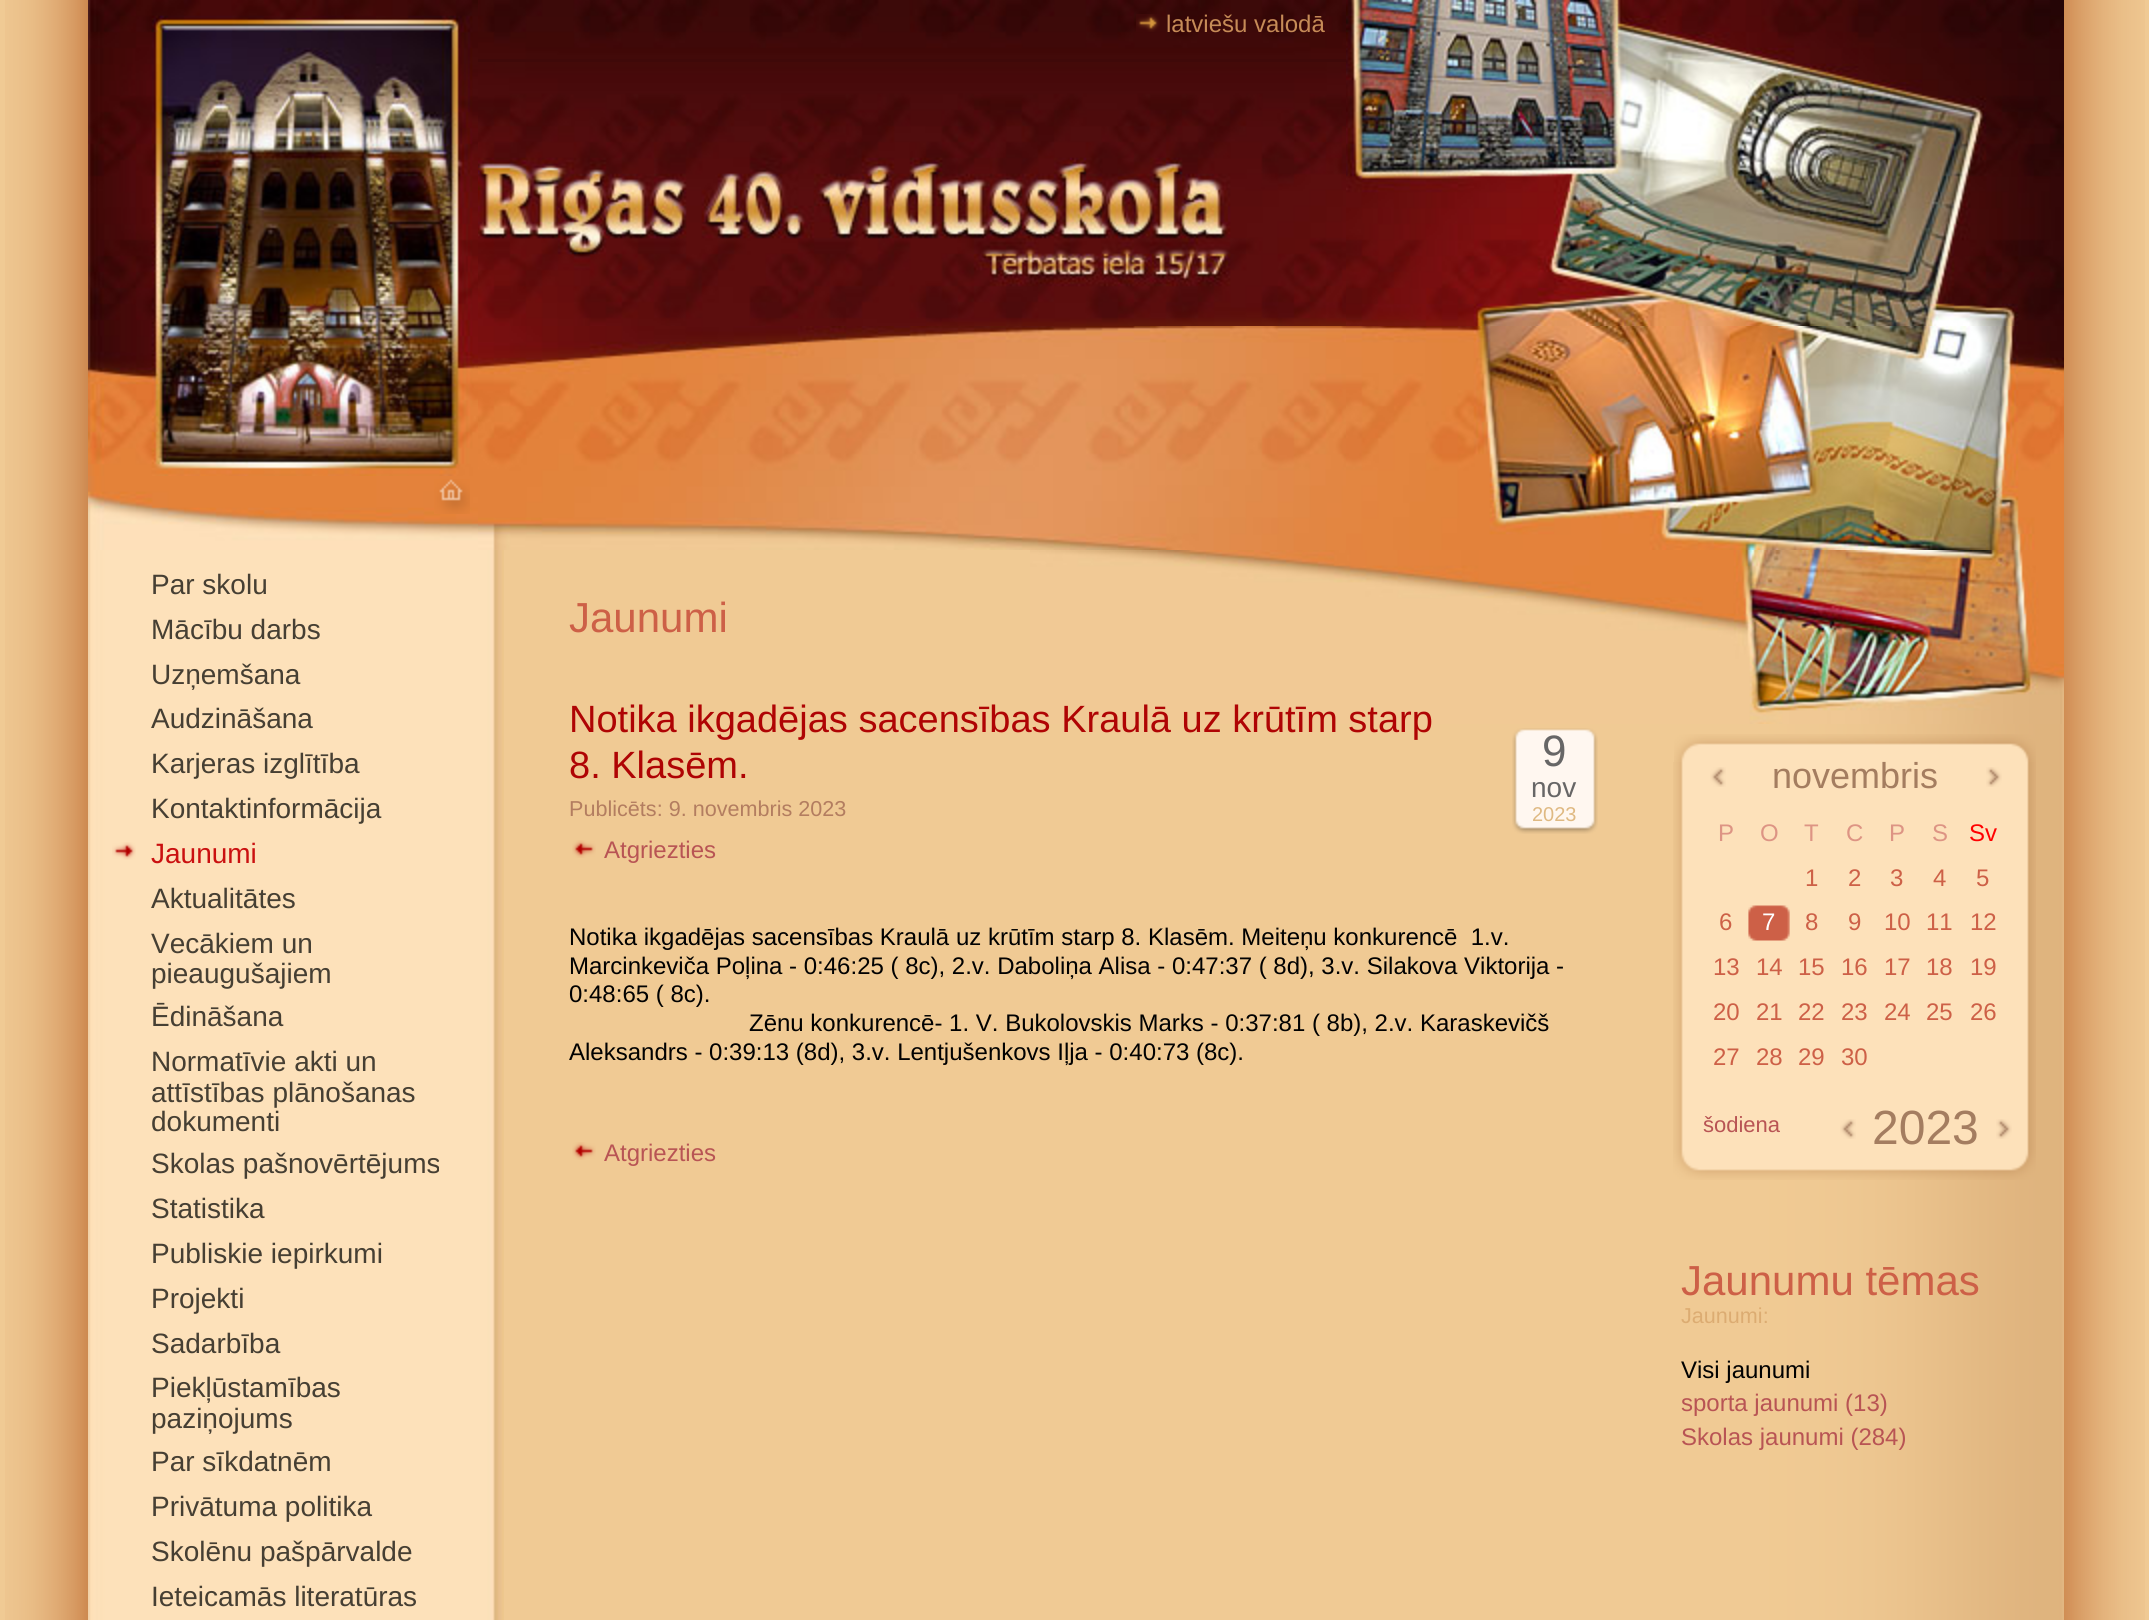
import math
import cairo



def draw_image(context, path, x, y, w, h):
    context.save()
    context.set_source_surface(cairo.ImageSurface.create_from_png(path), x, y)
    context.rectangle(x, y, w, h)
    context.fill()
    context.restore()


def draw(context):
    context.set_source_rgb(240 / 255, 202 / 255, 148 / 255)
    context.paint()
    draw_image(context, "images/1.png", 5, 0, 2140, 1620)
    draw_image(context, "images/2.png", 88, 0, 390, 476)
    draw_image(context, "images/3.png", 88, 476, 390, 74)
    draw_image(context, "images/4.png", 434, 479, 36, 35)
    context.set_source_rgb(63 / 255, 9 / 255, 9 / 255)
    context.rectangle(478, 59, 868, 3)
    context.fill()
    draw_image(context, "images/5.png", 478, 0, 868, 59)
    draw_image(context, "images/6.png", 1136, 14, 24, 18)
    draw_image(context, "images/7.png", 478, 62, 868, 264)
    draw_image(context, "images/8.png", 478, 326, 868, 224)
    draw_image(context, "images/9.png", 1346, 0, 718, 326)
    draw_image(context, "images/10.png", 1346, 326, 718, 224)
    draw_image(context, "images/11.png", 1030, 550, 1034, 174)
    draw_image(context, "images/12.png", 504, 724, 1560, 896)
    draw_image(context, "images/13.png", 88, 550, 416, 1070)
    draw_image(context, "images/14.png", 112, 842, 24, 18)
    draw_image(context, "images/15.png", 1512, 728, 86, 106)
    draw_image(context, "images/16.png", 572, 840, 24, 18)
    draw_image(context, "images/16.png", 572, 1142, 24, 18)
    draw_image(context, "images/17.png", 1674, 734, 362, 28)
    draw_image(context, "images/18.png", 1673, 762, 363, 388)
    draw_image(context, "images/19.png", 1710, 767, 16, 20)
    draw_image(context, "images/20.png", 1986, 767, 16, 20)
    draw_image(context, "images/21.png", 1748, 900, 42, 46)
    draw_image(context, "images/19.png", 1840, 1119, 16, 20)
    draw_image(context, "images/20.png", 1996, 1119, 16, 20)
    draw_image(context, "images/22.png", 1673, 1150, 363, 30)
    context.select_font_face("Liberation Sans")
    context.set_font_size(24)
    context.set_source_rgb(198 / 255, 139 / 255, 87 / 255)
    context.move_to(1166, 32)
    context.show_text("latviešu valodā")
    context.set_font_size(28)
    context.set_source_rgb(70 / 255, 63 / 255, 51 / 255)
    context.move_to(151, 594)
    context.show_text("Par skolu")
    context.move_to(151, 639)
    context.show_text("Mācību darbs")
    context.move_to(151, 684)
    context.show_text("Uzņemšana")
    context.move_to(151, 728)
    context.show_text("Audzināšana")
    context.move_to(151, 773)
    context.show_text("Karjeras izglītība")
    context.move_to(151, 818)
    context.show_text("Kontaktinformācija")
    context.set_source_rgb(202 / 255, 16 / 255, 16 / 255)
    context.move_to(151, 863)
    context.show_text("Jaunumi")
    context.set_source_rgb(70 / 255, 63 / 255, 51 / 255)
    context.move_to(151, 908)
    context.show_text("Aktualitātes")
    context.move_to(151, 953)
    context.show_text("Vecākiem un")
    context.move_to(151, 983)
    context.show_text("pieaugušajiem")
    context.move_to(151, 1026)
    context.show_text("Ēdināšana")
    context.move_to(151, 1071)
    context.show_text("Normatīvie akti un")
    context.move_to(151, 1102)
    context.show_text("attīstības plānošanas")
    context.move_to(151, 1131)
    context.show_text("dokumenti")
    context.move_to(151, 1173)
    context.show_text("Skolas pašnovērtējums")
    context.move_to(151, 1218)
    context.show_text("Statistika")
    context.move_to(151, 1263)
    context.show_text("Publiskie iepirkumi")
    context.move_to(151, 1308)
    context.show_text("Projekti")
    context.move_to(151, 1353)
    context.show_text("Sadarbība")
    context.move_to(151, 1397)
    context.show_text("Piekļūstamības")
    context.move_to(151, 1428)
    context.show_text("paziņojums")
    context.move_to(151, 1471)
    context.show_text("Par sīkdatnēm")
    context.move_to(151, 1516)
    context.show_text("Privātuma politika")
    context.move_to(151, 1561)
    context.show_text("Skolēnu pašpārvalde")
    context.move_to(151, 1606)
    context.show_text("Ieteicamās literatūras")
    context.set_font_size(42)
    context.set_source_rgb(205 / 255, 96 / 255, 71 / 255)
    context.move_to(569, 632)
    context.show_text("Jaunumi")
    context.set_font_size(38)
    context.set_source_rgb(175 / 255, 4 / 255, 4 / 255)
    context.move_to(569, 732)
    context.show_text("Notika ikgadējas sacensības Kraulā uz krūtīm starp")
    context.move_to(569, 778)
    context.show_text("8. Klasēm.")
    context.set_font_size(21.6)
    context.set_source_rgb(179 / 255, 125 / 255, 96 / 255)
    context.move_to(569, 816)
    context.show_text("Publicēts: 9. novembris 2023")
    context.set_font_size(44)
    context.set_source_rgb(103 / 255, 102 / 255, 102 / 255)
    context.move_to(1542, 766)
    context.show_text("9")
    context.set_font_size(28)
    context.move_to(1531, 797)
    context.show_text("nov")
    context.set_font_size(20)
    context.set_source_rgb(223 / 255, 185 / 255, 130 / 255)
    context.move_to(1532, 821)
    context.show_text("2023")
    context.set_font_size(24)
    context.set_source_rgb(184 / 255, 84 / 255, 84 / 255)
    context.move_to(604, 858)
    context.show_text("Atgriezties")
    context.set_source_rgb(1 / 255, 1 / 255, 1 / 255)
    context.move_to(569, 945)
    context.show_text("Notika ikgadējas sacensības Kraulā uz krūtīm starp 8. Klasēm. Meiteņu konkurencē  1.v.")
    context.move_to(569, 974)
    context.show_text("Marcinkeviča Poļina - 0:46:25 ( 8c), 2.v. Daboliņa Alisa - 0:47:37 ( 8d), 3.v. Silakova Viktorija -")
    context.move_to(569, 1002)
    context.show_text("0:48:65 ( 8c).")
    context.move_to(749, 1031)
    context.show_text("Zēnu konkurencē- 1. V. Bukolovskis Marks - 0:37:81 ( 8b), 2.v. Karaskevičš")
    context.move_to(569, 1060)
    context.show_text("Aleksandrs - 0:39:13 (8d), 3.v. Lentjušenkovs Iļja - 0:40:73 (8c).")
    context.set_source_rgb(184 / 255, 84 / 255, 84 / 255)
    context.move_to(604, 1161)
    context.show_text("Atgriezties")
    context.set_font_size(36)
    context.set_source_rgb(164 / 255, 125 / 255, 96 / 255)
    context.move_to(1772, 788)
    context.show_text("novembris")
    context.set_font_size(24)
    context.set_source_rgb(221 / 255, 148 / 255, 132 / 255)
    context.move_to(1718, 841)
    context.show_text("P")
    context.move_to(1760, 841)
    context.show_text("O")
    context.move_to(1804, 841)
    context.show_text("T")
    context.move_to(1846, 841)
    context.show_text("C")
    context.move_to(1889, 841)
    context.show_text("P")
    context.move_to(1932, 841)
    context.show_text("S")
    context.set_source_rgb(1, 0, 0)
    context.move_to(1969, 841)
    context.show_text("Sv")
    context.set_source_rgb(205 / 255, 96 / 255, 71 / 255)
    context.move_to(1805, 886)
    context.show_text("1")
    context.move_to(1848, 886)
    context.show_text("2")
    context.move_to(1890, 886)
    context.show_text("3")
    context.move_to(1933, 886)
    context.show_text("4")
    context.move_to(1976, 886)
    context.show_text("5")
    context.move_to(1719, 930)
    context.show_text("6")
    context.set_source_rgb(1, 1, 1)
    context.move_to(1762, 930)
    context.show_text("7")
    context.set_source_rgb(205 / 255, 96 / 255, 71 / 255)
    context.move_to(1805, 930)
    context.show_text("8")
    context.move_to(1848, 930)
    context.show_text("9")
    context.move_to(1884, 930)
    context.show_text("10")
    context.move_to(1926, 930)
    context.show_text("11")
    context.move_to(1970, 930)
    context.show_text("12")
    context.move_to(1713, 975)
    context.show_text("13")
    context.move_to(1756, 975)
    context.show_text("14")
    context.move_to(1798, 975)
    context.show_text("15")
    context.move_to(1841, 975)
    context.show_text("16")
    context.move_to(1884, 975)
    context.show_text("17")
    context.move_to(1926, 975)
    context.show_text("18")
    context.move_to(1970, 975)
    context.show_text("19")
    context.move_to(1713, 1020)
    context.show_text("20")
    context.move_to(1756, 1020)
    context.show_text("21")
    context.move_to(1798, 1020)
    context.show_text("22")
    context.move_to(1841, 1020)
    context.show_text("23")
    context.move_to(1884, 1020)
    context.show_text("24")
    context.move_to(1926, 1020)
    context.show_text("25")
    context.move_to(1970, 1020)
    context.show_text("26")
    context.move_to(1713, 1065)
    context.show_text("27")
    context.move_to(1756, 1065)
    context.show_text("28")
    context.move_to(1798, 1065)
    context.show_text("29")
    context.move_to(1841, 1065)
    context.show_text("30")
    context.set_font_size(22)
    context.set_source_rgb(184 / 255, 84 / 255, 84 / 255)
    context.move_to(1703, 1132)
    context.show_text("šodiena")
    context.set_font_size(48)
    context.set_source_rgb(164 / 255, 125 / 255, 96 / 255)
    context.move_to(1872, 1144)
    context.show_text("2023")
    context.set_font_size(42)
    context.set_source_rgb(205 / 255, 96 / 255, 71 / 255)
    context.move_to(1681, 1295)
    context.show_text("Jaunumu tēmas")
    context.set_font_size(21.6)
    context.set_source_rgb(220 / 255, 172 / 255, 114 / 255)
    context.move_to(1681, 1323)
    context.show_text("Jaunumi:")
    context.set_font_size(24)
    context.set_source_rgb(1 / 255, 1 / 255, 1 / 255)
    context.move_to(1681, 1378)
    context.show_text("Visi jaunumi")
    context.set_source_rgb(184 / 255, 84 / 255, 84 / 255)
    context.move_to(1681, 1411)
    context.show_text("sporta jaunumi (13)")
    context.move_to(1681, 1445)
    context.show_text("Skolas jaunumi (284)")


surface = cairo.ImageSurface(cairo.Format.RGB24, 2149, 1620)
context = cairo.Context(surface)
options = cairo.FontOptions()
options.set_hint_metrics(cairo.HintMetrics.OFF)
options.set_hint_style(cairo.HintStyle.NONE)
context.set_font_options(options)
context.set_miter_limit(4)
draw(context)
surface.write_to_png("out.png")
